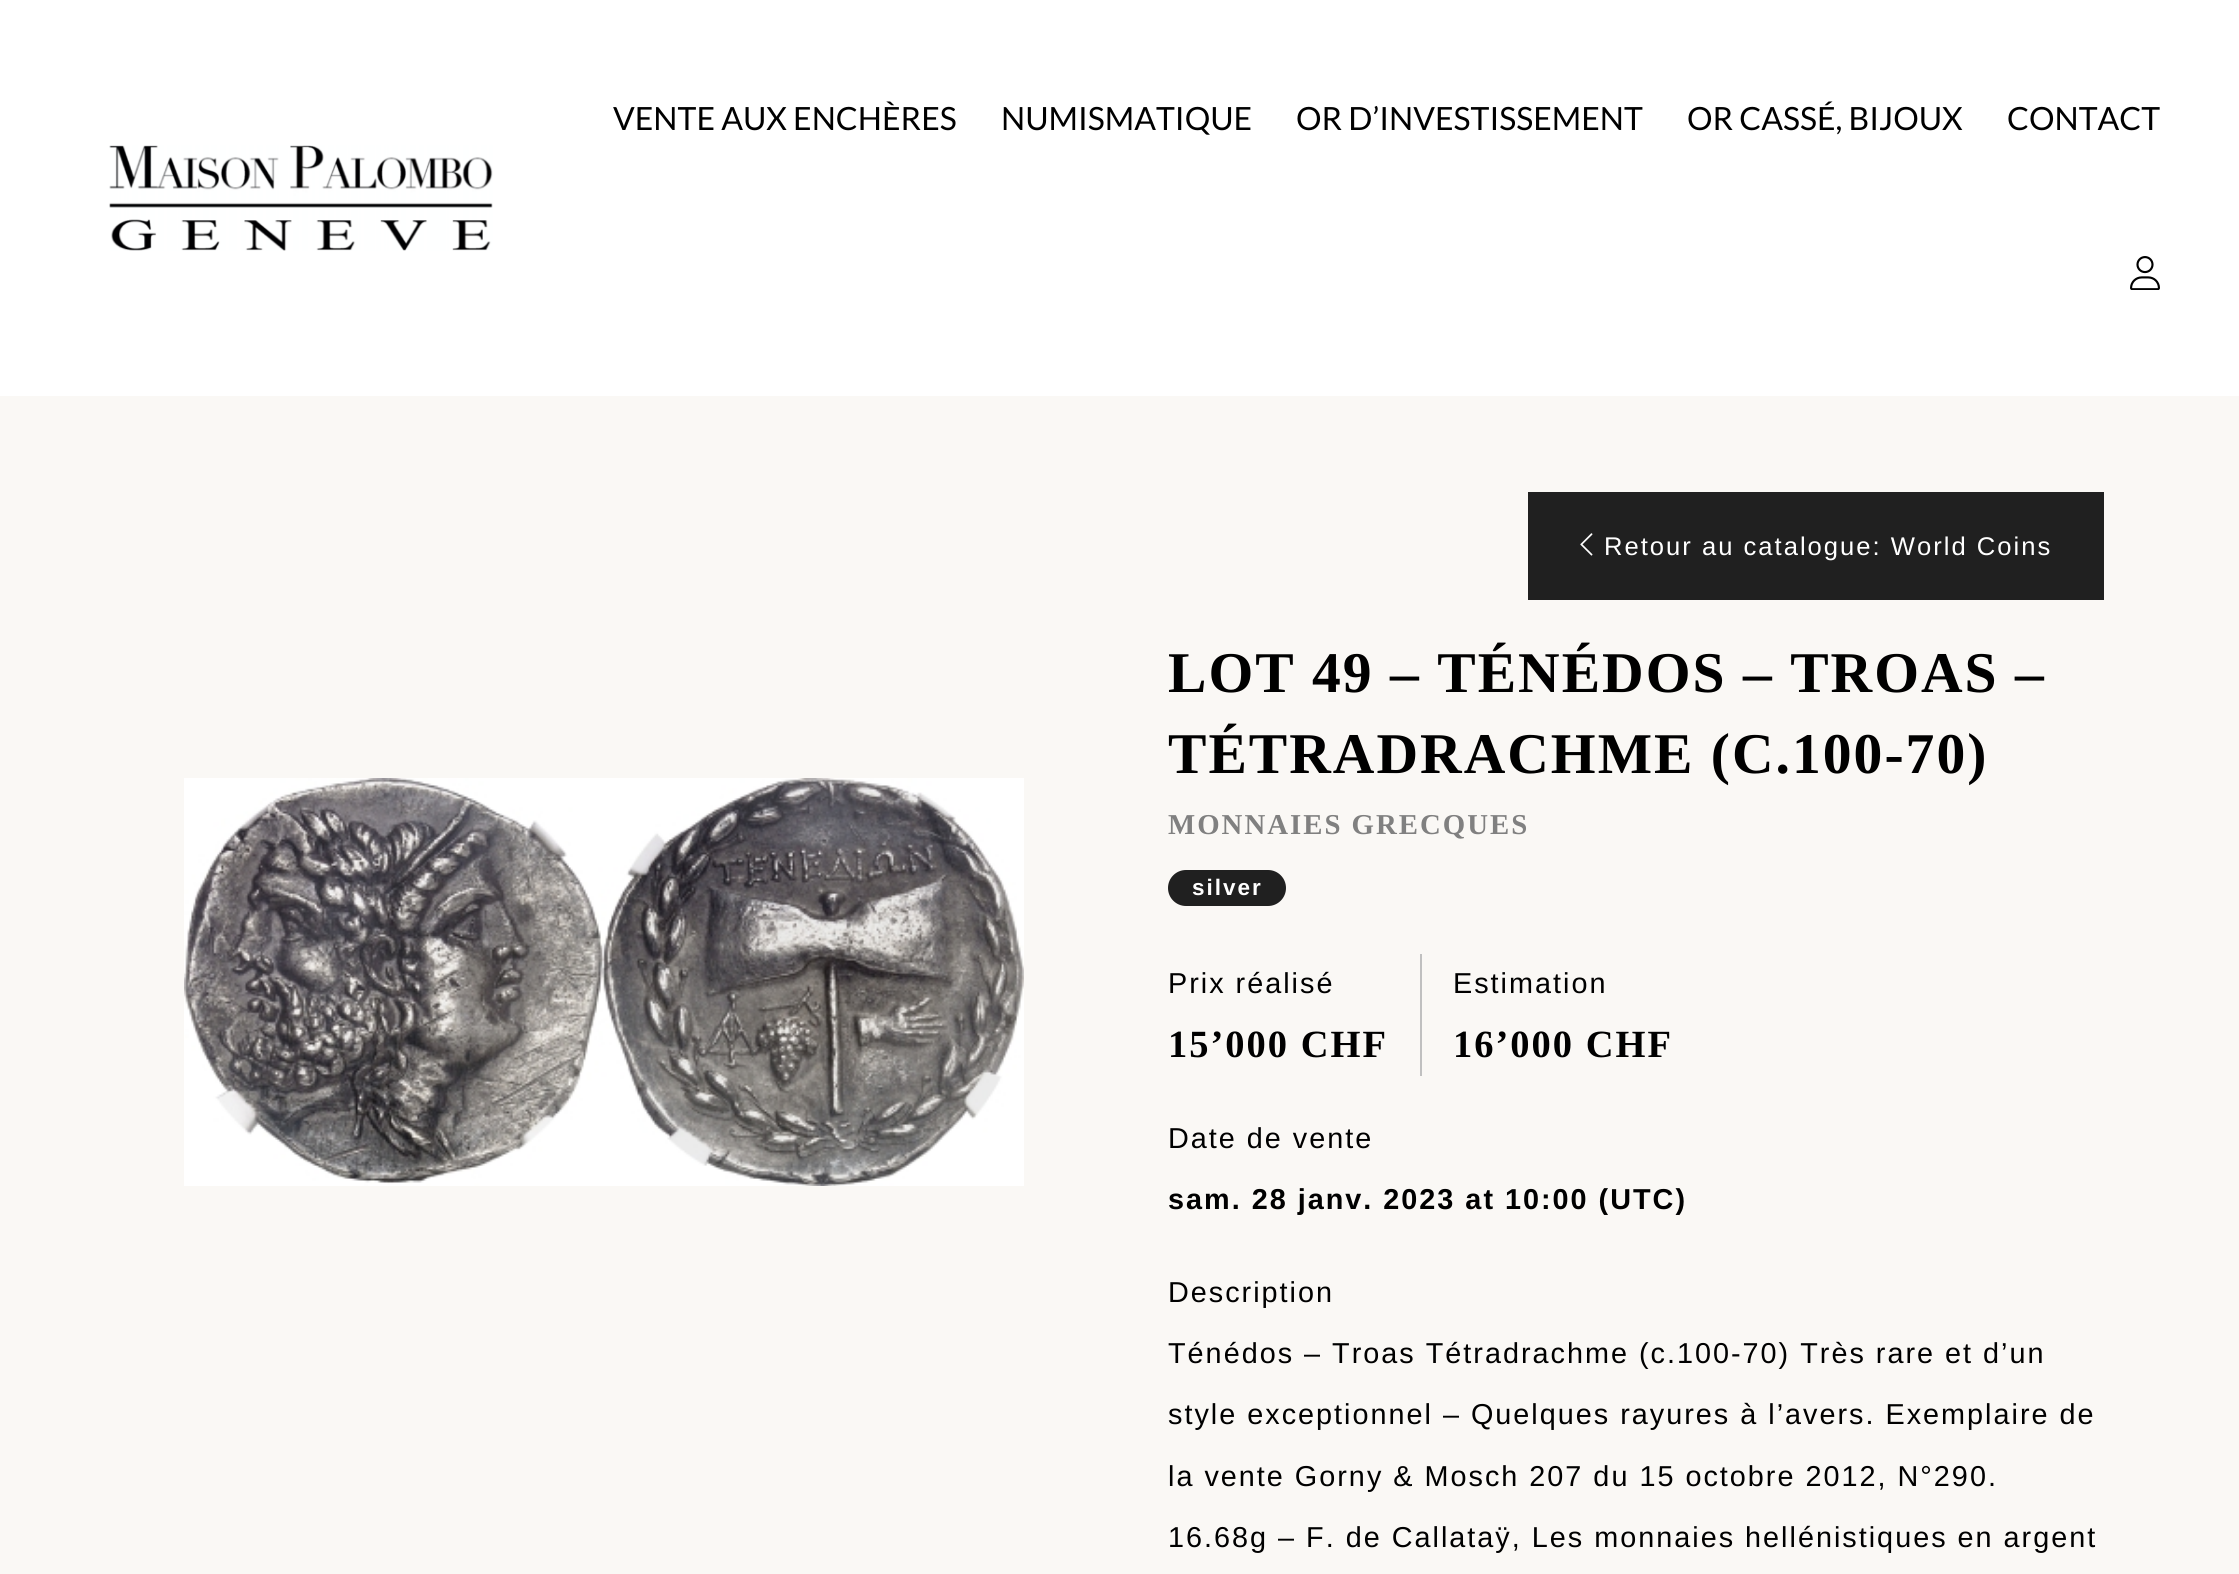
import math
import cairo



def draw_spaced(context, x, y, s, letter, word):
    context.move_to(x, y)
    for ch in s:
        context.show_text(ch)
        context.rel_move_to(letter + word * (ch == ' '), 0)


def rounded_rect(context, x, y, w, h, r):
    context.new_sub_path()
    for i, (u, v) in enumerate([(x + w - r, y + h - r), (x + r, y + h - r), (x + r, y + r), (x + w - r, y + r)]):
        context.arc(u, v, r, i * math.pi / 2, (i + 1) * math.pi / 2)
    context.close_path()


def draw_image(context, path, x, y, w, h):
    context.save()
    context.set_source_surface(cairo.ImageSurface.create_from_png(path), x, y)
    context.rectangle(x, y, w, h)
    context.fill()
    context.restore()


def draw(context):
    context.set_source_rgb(250 / 255, 248 / 255, 245 / 255)
    context.paint()
    context.set_source_rgb(1, 1, 1)
    context.rectangle(0, 0, 2239, 396)
    context.fill()
    draw_image(context, "images/1.png", 2130, 256, 30, 34)
    draw_image(context, "images/2.png", 109, 145, 384, 106)
    context.set_source_rgb(32 / 255, 32 / 255, 32 / 255)
    context.rectangle(1528, 492, 576, 108)
    context.fill()
    draw_image(context, "images/3.png", 1580, 533, 13, 23)
    draw_image(context, "images/4.png", 184, 778, 840, 408)
    rounded_rect(context, 1168, 870, 118, 36, 18)
    context.fill()
    context.set_source_rgb(192 / 255, 192 / 255, 192 / 255)
    context.rectangle(1420, 954, 2, 122)
    context.fill()
    context.select_font_face("Lato")
    context.set_font_size(32)
    context.set_source_rgb(0, 0, 0)
    context.move_to(613, 130)
    context.show_text("VENTE AUX ENCHÈRES")
    context.move_to(1001, 130)
    context.show_text("NUMISMATIQUE")
    context.move_to(1296, 130)
    context.show_text("OR D’INVESTISSEMENT")
    context.move_to(1687, 130)
    context.show_text("OR CASSÉ, BIJOUX")
    context.move_to(2007, 130)
    context.show_text("CONTACT")
    context.select_font_face("Liberation Sans")
    context.set_font_size(25.6)
    context.set_source_rgb(1, 1, 1)
    draw_spaced(context, 1604, 555, "Retour au catalogue: World Coins", 2, 0)
    context.select_font_face("Liberation Serif", cairo.FontSlant.NORMAL, cairo.FontWeight.BOLD)
    context.set_font_size(57.6)
    context.set_source_rgb(0, 0, 0)
    draw_spaced(context, 1168, 692, "LOT 49 – TÉNÉDOS – TROAS –", 2, 0)
    draw_spaced(context, 1168, 773, "TÉTRADRACHME (C.100-70)", 2, 0)
    context.set_font_size(28.8)
    context.set_source_rgb(128 / 255, 128 / 255, 128 / 255)
    draw_spaced(context, 1168, 834, "MONNAIES GRECQUES", 2, 0)
    context.select_font_face("Liberation Sans", cairo.FontSlant.NORMAL, cairo.FontWeight.BOLD)
    context.set_font_size(22.5)
    context.set_source_rgb(1, 1, 1)
    draw_spaced(context, 1192, 895, "silver", 2, 0)
    context.select_font_face("Liberation Sans")
    context.set_font_size(28.8)
    context.set_source_rgb(0, 0, 0)
    draw_spaced(context, 1168, 993, "Prix réalisé", 2, 0)
    context.select_font_face("Liberation Serif", cairo.FontSlant.NORMAL, cairo.FontWeight.BOLD)
    context.set_font_size(38.5)
    draw_spaced(context, 1168, 1057, "15’000 CHF", 2, 0)
    context.select_font_face("Liberation Sans")
    context.set_font_size(28.8)
    draw_spaced(context, 1453, 993, "Estimation", 2, 0)
    context.select_font_face("Liberation Serif", cairo.FontSlant.NORMAL, cairo.FontWeight.BOLD)
    context.set_font_size(38.5)
    draw_spaced(context, 1453, 1057, "16’000 CHF", 2, 0)
    context.select_font_face("Liberation Sans")
    context.set_font_size(28.8)
    draw_spaced(context, 1168, 1148, "Date de vente", 2, 0)
    context.select_font_face("Liberation Sans", cairo.FontSlant.NORMAL, cairo.FontWeight.BOLD)
    draw_spaced(context, 1168, 1209, "sam. 28 janv. 2023 at 10:00 (UTC)", 2, 0)
    context.select_font_face("Liberation Sans")
    draw_spaced(context, 1168, 1302, "Description", 2, 0)
    draw_spaced(context, 1168, 1363, "Ténédos – Troas Tétradrachme (c.100-70) Très rare et d’un", 2, 0)
    draw_spaced(context, 1168, 1424, "style exceptionnel – Quelques rayures à l’avers. Exemplaire de", 2, 0)
    draw_spaced(context, 1168, 1486, "la vente Gorny & Mosch 207 du 15 octobre 2012, N°290.", 2, 0)
    draw_spaced(context, 1168, 1547, "16.68g – F. de Callataÿ, Les monnaies hellénistiques en argent", 2, 0)


surface = cairo.ImageSurface(cairo.Format.RGB24, 2239, 1574)
context = cairo.Context(surface)
options = cairo.FontOptions()
options.set_hint_metrics(cairo.HintMetrics.OFF)
options.set_hint_style(cairo.HintStyle.NONE)
context.set_font_options(options)
context.set_miter_limit(4)
draw(context)
surface.write_to_png("out.png")
